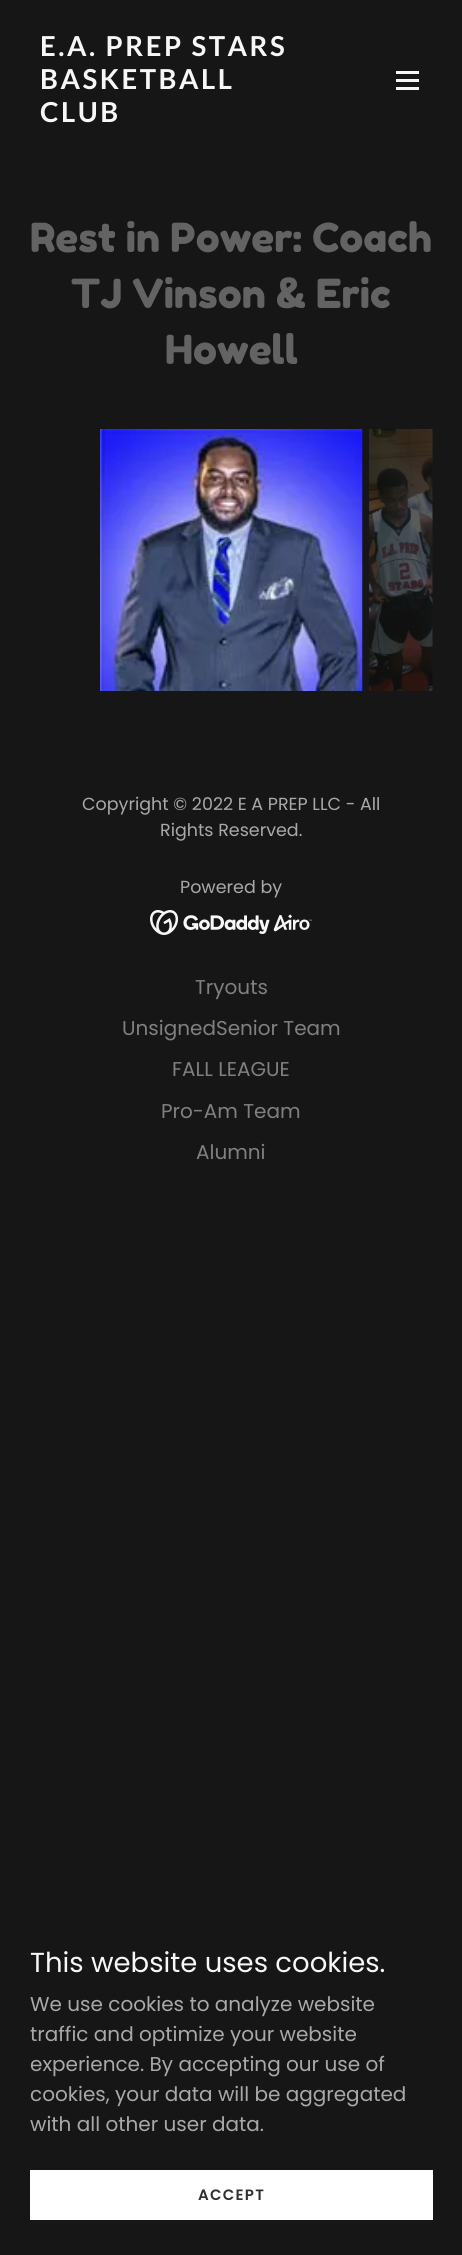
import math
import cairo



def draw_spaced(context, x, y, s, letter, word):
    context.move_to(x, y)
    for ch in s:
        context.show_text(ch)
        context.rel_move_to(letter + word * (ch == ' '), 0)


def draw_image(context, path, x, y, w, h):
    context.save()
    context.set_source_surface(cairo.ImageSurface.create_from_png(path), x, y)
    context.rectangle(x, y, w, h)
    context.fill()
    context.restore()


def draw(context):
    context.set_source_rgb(22 / 255, 22 / 255, 22 / 255)
    context.paint()
    context.set_source_rgb(247 / 255, 247 / 255, 247 / 255)
    context.rectangle(396, 71, 23, 3)
    context.fill()
    context.rectangle(396, 79, 23, 3)
    context.fill()
    context.rectangle(396, 87, 23, 3)
    context.fill()
    draw_image(context, "images/1.png", 100, 429, 263, 262)
    draw_image(context, "images/2.png", 369, 429, 64, 262)
    draw_image(context, "images/3.png", 150, 910, 162, 25)
    context.set_source_rgb(1, 1, 1)
    context.rectangle(30, 2170, 403, 50)
    context.fill()
    context.select_font_face("Lato", cairo.FontSlant.NORMAL, cairo.FontWeight.BOLD)
    context.set_font_size(27.5)
    context.set_source_rgb(247 / 255, 247 / 255, 247 / 255)
    draw_spaced(context, 40, 56, "E.A. PREP STARS", 2.5, 0)
    draw_spaced(context, 40, 89, "BASKETBALL", 2.5, 0)
    draw_spaced(context, 40, 122, "CLUB", 2.5, 0)
    context.select_font_face("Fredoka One")
    context.set_font_size(40)
    context.set_source_rgb(99 / 255, 99 / 255, 99 / 255)
    context.move_to(30, 252)
    context.show_text("Rest in Power: Coach")
    context.move_to(71, 308)
    context.show_text("TJ Vinson & Eric")
    context.move_to(165, 364)
    context.show_text("Howell")
    context.select_font_face("Poppins")
    context.set_font_size(17.5)
    context.set_source_rgb(169 / 255, 169 / 255, 169 / 255)
    context.move_to(82, 810)
    context.show_text("Copyright © 2022 E A PREP LLC - All")
    context.move_to(160, 836)
    context.show_text("Rights Reserved.")
    context.move_to(180, 893)
    context.show_text("Powered by")
    context.set_font_size(20)
    context.set_source_rgb(127 / 255, 128 / 255, 128 / 255)
    context.move_to(195, 994)
    context.show_text("Tryouts")
    context.move_to(122, 1035)
    context.show_text("UnsignedSenior Team")
    context.move_to(172, 1076)
    context.show_text("FALL LEAGUE")
    context.move_to(161, 1118)
    context.show_text("Pro-Am Team")
    context.move_to(196, 1159)
    context.show_text("Alumni")
    context.set_font_size(27.5)
    context.set_source_rgb(247 / 255, 247 / 255, 247 / 255)
    context.move_to(30, 1972)
    context.show_text("This website uses cookies.")
    context.set_font_size(20)
    context.set_source_rgb(169 / 255, 169 / 255, 169 / 255)
    context.move_to(30, 2011)
    context.show_text("We use cookies to analyze website")
    context.move_to(30, 2041)
    context.show_text("traffic and optimize your website")
    context.move_to(30, 2071)
    context.show_text("experience. By accepting our use of")
    context.move_to(30, 2101)
    context.show_text("cookies, your data will be aggregated")
    context.move_to(30, 2131)
    context.show_text("with all other user data.")
    context.select_font_face("Poppins SemiBold")
    context.set_font_size(15)
    context.set_source_rgb(48 / 255, 48 / 255, 48 / 255)
    draw_spaced(context, 198, 2200, "ACCEPT", 1.25, 0)


surface = cairo.ImageSurface(cairo.Format.RGB24, 462, 2255)
context = cairo.Context(surface)
options = cairo.FontOptions()
options.set_hint_metrics(cairo.HintMetrics.OFF)
options.set_hint_style(cairo.HintStyle.NONE)
context.set_font_options(options)
context.set_miter_limit(4)
draw(context)
surface.write_to_png("out.png")
